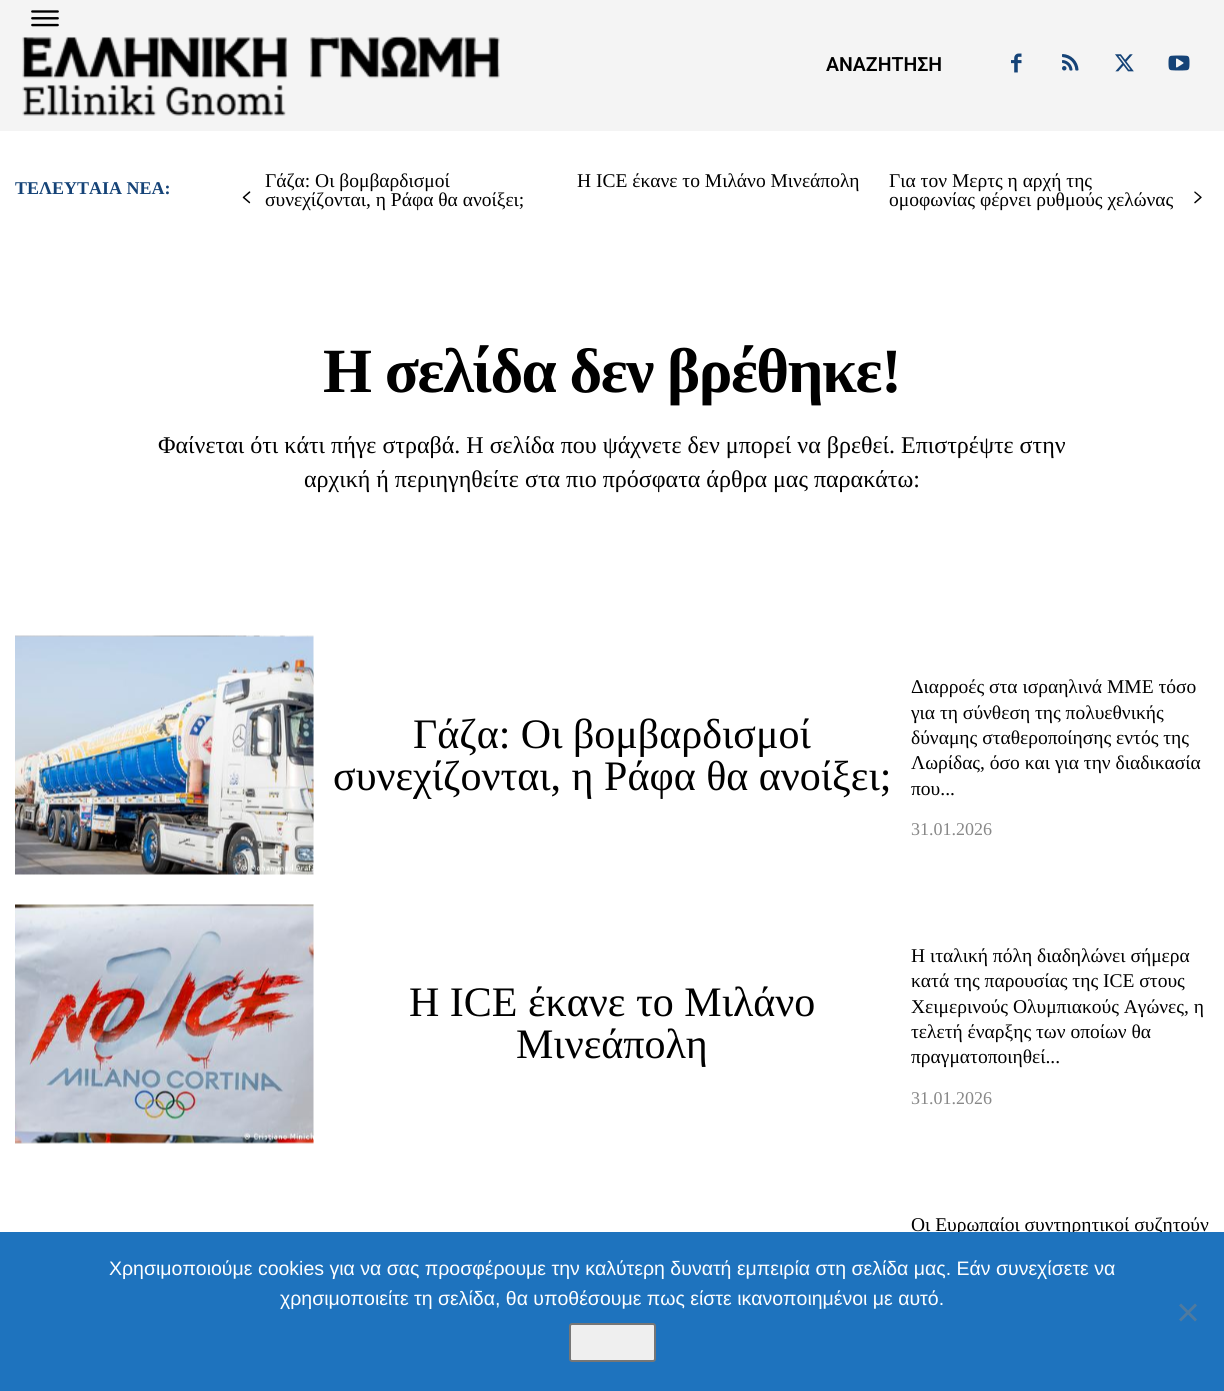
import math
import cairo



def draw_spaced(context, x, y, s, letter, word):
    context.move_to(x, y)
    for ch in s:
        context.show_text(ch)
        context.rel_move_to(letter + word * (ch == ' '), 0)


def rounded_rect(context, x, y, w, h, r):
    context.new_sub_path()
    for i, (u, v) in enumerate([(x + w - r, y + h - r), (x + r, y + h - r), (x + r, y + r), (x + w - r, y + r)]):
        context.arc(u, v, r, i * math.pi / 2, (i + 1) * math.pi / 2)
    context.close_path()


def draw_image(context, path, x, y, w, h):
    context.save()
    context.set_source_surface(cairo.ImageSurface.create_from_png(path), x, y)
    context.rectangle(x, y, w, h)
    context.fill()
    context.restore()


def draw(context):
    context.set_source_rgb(1, 1, 1)
    context.paint()
    context.set_source_rgb(244 / 255, 244 / 255, 244 / 255)
    context.rectangle(0, 0, 1224, 131)
    context.fill()
    draw_image(context, "images/1.png", 31, 10, 28, 17)
    draw_image(context, "images/2.png", 22, 36, 478, 80)
    draw_image(context, "images/3.png", 1011, 53, 11, 20)
    draw_image(context, "images/4.png", 1062, 54, 17, 17)
    draw_image(context, "images/5.png", 1115, 54, 19, 18)
    draw_image(context, "images/6.png", 1168, 55, 22, 16)
    draw_image(context, "images/7.png", 242, 191, 9, 13)
    draw_image(context, "images/8.png", 1194, 191, 8, 13)
    draw_image(context, "images/9.png", 15, 635, 299, 240)
    draw_image(context, "images/10.png", 15, 904, 299, 240)
    context.select_font_face("Roboto SemiBold")
    context.set_font_size(19.5)
    context.set_source_rgb(0, 0, 0)
    context.move_to(826, 71)
    context.show_text("ΑΝΑΖΗΤΗΣΗ")
    context.select_font_face("Tinos", cairo.FontSlant.NORMAL, cairo.FontWeight.BOLD)
    context.set_font_size(18)
    context.set_source_rgb(21 / 255, 67 / 255, 119 / 255)
    context.move_to(15, 194)
    context.show_text("ΤΕΛΕΥΤΑΙΑ ΝΕΑ:")
    context.select_font_face("Tinos")
    context.set_font_size(19.5)
    context.set_source_rgb(0, 0, 0)
    context.move_to(265, 187)
    context.show_text("Γάζα: Οι βομβαρδισμοί")
    context.move_to(265, 206)
    context.show_text("συνεχίζονται, η Ράφα θα ανοίξει;")
    context.move_to(577, 187)
    context.show_text("Η ICE έκανε το Μιλάνο Μινεάπολη")
    context.move_to(889, 187)
    context.show_text("Για τον Μερτς η αρχή της")
    context.move_to(889, 206)
    context.show_text("ομοφωνίας φέρνει ρυθμούς χελώνας")
    context.select_font_face("Tinos", cairo.FontSlant.NORMAL, cairo.FontWeight.BOLD)
    context.set_font_size(63)
    draw_spaced(context, 323, 392, "Η σελίδα δεν βρέθηκε!", -1.5, 0)
    context.select_font_face("Tinos")
    context.set_font_size(24)
    context.move_to(158, 453)
    context.show_text("Φαίνεται ότι κάτι πήγε στραβά. Η σελίδα που ψάχνετε δεν μπορεί να βρεθεί. Επιστρέψτε στην")
    context.move_to(304, 487)
    context.show_text("αρχική ή περιηγηθείτε στα πιο πρόσφατα άρθρα μας παρακάτω:")
    context.set_font_size(42)
    context.move_to(413, 748)
    context.show_text("Γάζα: Οι βομβαρδισμοί")
    context.move_to(333, 790)
    context.show_text("συνεχίζονται, η Ράφα θα ανοίξει;")
    context.set_font_size(19.5)
    context.move_to(911, 693)
    context.show_text("Διαρροές στα ισραηλινά ΜΜΕ τόσο")
    context.move_to(911, 719)
    context.show_text("για τη σύνθεση της πολυεθνικής")
    context.move_to(911, 744)
    context.show_text("δύναμης σταθεροποίησης εντός της")
    context.move_to(911, 769)
    context.show_text("Λωρίδας, όσο και για την διαδικασία")
    context.move_to(911, 795)
    context.show_text("που...")
    context.set_font_size(18)
    context.set_source_rgb(136 / 255, 136 / 255, 136 / 255)
    context.move_to(911, 835)
    context.show_text("31.01.2026")
    context.set_font_size(42)
    context.set_source_rgb(0, 0, 0)
    context.move_to(409, 1016)
    context.show_text("Η ICE έκανε το Μιλάνο")
    context.move_to(516, 1058)
    context.show_text("Μινεάπολη")
    context.set_font_size(19.5)
    context.move_to(911, 962)
    context.show_text("Η ιταλική πόλη διαδηλώνει σήμερα")
    context.move_to(911, 987)
    context.show_text("κατά της παρουσίας της ICE στους")
    context.move_to(911, 1013)
    context.show_text("Χειμερινούς Ολυμπιακούς Αγώνες, η")
    context.move_to(911, 1038)
    context.show_text("τελετή έναρξης των οποίων θα")
    context.move_to(911, 1063)
    context.show_text("πραγματοποιηθεί...")
    context.set_font_size(18)
    context.set_source_rgb(136 / 255, 136 / 255, 136 / 255)
    context.move_to(911, 1104)
    context.show_text("31.01.2026")
    context.set_font_size(19.5)
    context.set_source_rgb(0, 0, 0)
    context.move_to(911, 1231)
    context.show_text("Οι Ευρωπαίοι συντηρητικοί συζητούν")
    context.set_source_rgb(30 / 255, 115 / 255, 190 / 255)
    context.rectangle(0, 1232, 1224, 159)
    context.fill()
    context.select_font_face("Liberation Sans")
    context.set_source_rgb(1, 1, 1)
    context.move_to(109, 1275)
    context.show_text("Χρησιμοποιούμε cookies για να σας προσφέρουμε την καλύτερη δυνατή εμπειρία στη σελίδα μας. Εάν συνεχίσετε να")
    context.move_to(280, 1305)
    context.show_text("χρησιμοποιείτε τη σελίδα, θα υποθέσουμε πως είστε ικανοποιημένοι με αυτό.")
    context.set_source_rgb(79 / 255, 122 / 255, 159 / 255)
    context.new_path()
    context.move_to(1195, 1303.5)
    context.line_to(1197, 1305.5)
    context.line_to(1181, 1321.5)
    context.line_to(1179, 1319.5)
    context.close_path()
    context.fill()
    context.new_path()
    context.move_to(1179, 1305.5)
    context.line_to(1181, 1303.5)
    context.line_to(1197, 1319.5)
    context.line_to(1195, 1321.5)
    context.close_path()
    context.fill()
    context.set_source_rgb(239 / 255, 239 / 255, 239 / 255)
    rounded_rect(context, 570, 1324, 85, 37, 2)
    context.fill_preserve()
    context.set_source_rgb(118 / 255, 118 / 255, 118 / 255)
    context.stroke()


surface = cairo.ImageSurface(cairo.Format.RGB24, 1224, 1391)
context = cairo.Context(surface)
options = cairo.FontOptions()
options.set_hint_metrics(cairo.HintMetrics.OFF)
options.set_hint_style(cairo.HintStyle.NONE)
context.set_font_options(options)
context.set_miter_limit(4)
draw(context)
surface.write_to_png("out.png")
